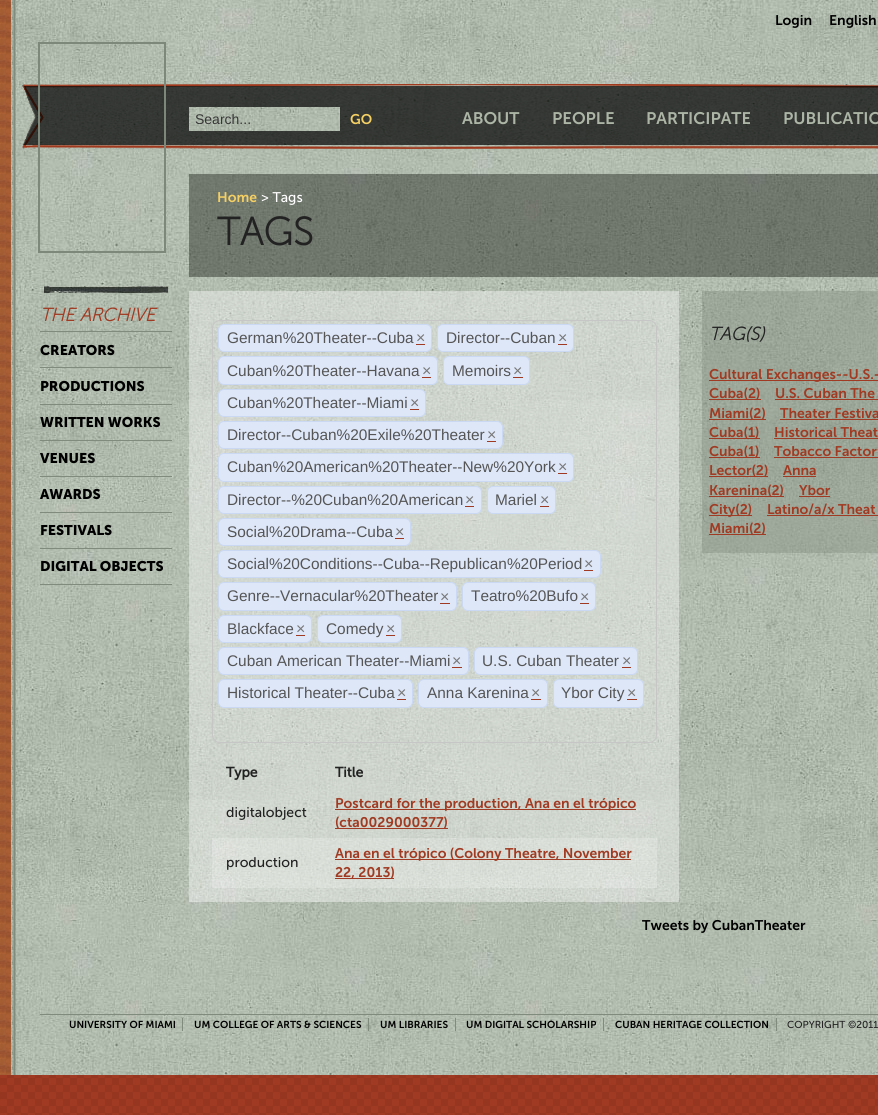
import math
import cairo



def rounded_rect(context, x, y, w, h, r):
    context.new_sub_path()
    for i, (u, v) in enumerate([(x + w - r, y + h - r), (x + r, y + h - r), (x + r, y + r), (x + w - r, y + r)]):
        context.arc(u, v, r, i * math.pi / 2, (i + 1) * math.pi / 2)
    context.close_path()


def draw_image(context, path, x, y, w, h):
    context.save()
    context.set_source_surface(cairo.ImageSurface.create_from_png(path), x, y)
    context.rectangle(x, y, w, h)
    context.fill()
    context.restore()


def draw(context):
    context.set_source_rgb(1, 1, 1)
    context.paint()
    draw_image(context, "images/1.png", 0, 1075, 878, 40)
    draw_image(context, "images/2.png", 16, 0, 862, 1075)
    draw_image(context, "images/3.png", 0, 0, 16, 1075)
    draw_image(context, "images/4.png", 20, 84, 858, 65)
    context.rectangle(39, 43, 126, 209)
    context.set_source_rgb(125 / 255, 136 / 255, 123 / 255)
    context.stroke()
    draw_image(context, "images/5.png", 189, 107, 151, 24)
    draw_image(context, "images/6.png", 44, 286, 124, 7)
    context.set_source_rgb(128 / 255, 139 / 255, 126 / 255)
    context.rectangle(40, 331, 132, 1)
    context.fill()
    context.rectangle(40, 367, 132, 1)
    context.fill()
    context.rectangle(40, 404, 132, 1)
    context.fill()
    context.rectangle(40, 440, 132, 1)
    context.fill()
    context.rectangle(40, 476, 132, 1)
    context.fill()
    context.rectangle(40, 512, 132, 1)
    context.fill()
    context.rectangle(40, 548, 132, 1)
    context.fill()
    context.rectangle(40, 584, 132, 1)
    context.fill()
    context.set_source_rgba(13 / 255, 15 / 255, 12 / 255, 0.4)
    context.rectangle(189, 174, 689, 103)
    context.fill()
    context.set_source_rgba(1, 1, 1, 0.4)
    context.rectangle(189, 291, 490, 611)
    context.fill()
    rounded_rect(context, 212.5, 320.5, 444, 422, 7.5)
    context.set_source_rgb(198 / 255, 198 / 255, 198 / 255)
    context.set_line_width(1)
    context.stroke()
    context.set_source_rgb(222 / 255, 231 / 255, 248 / 255)
    rounded_rect(context, 218.5, 324.5, 213, 27, 5.5)
    context.fill_preserve()
    context.set_source_rgb(202 / 255, 216 / 255, 243 / 255)
    context.stroke()
    context.set_source_rgb(160 / 255, 58 / 255, 34 / 255)
    context.rectangle(416, 344, 9, 1)
    context.fill()
    context.set_source_rgb(222 / 255, 231 / 255, 248 / 255)
    rounded_rect(context, 437.5, 324.5, 136, 27, 5.5)
    context.fill_preserve()
    context.set_source_rgb(202 / 255, 216 / 255, 243 / 255)
    context.stroke()
    context.set_source_rgb(160 / 255, 58 / 255, 34 / 255)
    context.rectangle(558, 344, 9, 1)
    context.fill()
    context.set_source_rgb(222 / 255, 231 / 255, 248 / 255)
    rounded_rect(context, 218.5, 356.5, 219, 28, 5.5)
    context.fill_preserve()
    context.set_source_rgb(202 / 255, 216 / 255, 243 / 255)
    context.stroke()
    context.set_source_rgb(160 / 255, 58 / 255, 34 / 255)
    context.rectangle(422, 377, 9, 1)
    context.fill()
    context.set_source_rgb(222 / 255, 231 / 255, 248 / 255)
    rounded_rect(context, 443.5, 356.5, 86, 28, 5.5)
    context.fill_preserve()
    context.set_source_rgb(202 / 255, 216 / 255, 243 / 255)
    context.stroke()
    context.set_source_rgb(160 / 255, 58 / 255, 34 / 255)
    context.rectangle(513, 377, 10, 1)
    context.fill()
    context.set_source_rgb(222 / 255, 231 / 255, 248 / 255)
    rounded_rect(context, 218.5, 389.5, 207, 27, 5.5)
    context.fill_preserve()
    context.set_source_rgb(202 / 255, 216 / 255, 243 / 255)
    context.stroke()
    context.set_source_rgb(160 / 255, 58 / 255, 34 / 255)
    context.rectangle(410, 409, 9, 1)
    context.fill()
    context.set_source_rgb(222 / 255, 231 / 255, 248 / 255)
    rounded_rect(context, 218.5, 421.5, 284, 27, 5.5)
    context.fill_preserve()
    context.set_source_rgb(202 / 255, 216 / 255, 243 / 255)
    context.stroke()
    context.set_source_rgb(160 / 255, 58 / 255, 34 / 255)
    context.rectangle(487, 441, 9, 1)
    context.fill()
    context.set_source_rgb(222 / 255, 231 / 255, 248 / 255)
    rounded_rect(context, 218.5, 453.5, 355, 28, 5.5)
    context.fill_preserve()
    context.set_source_rgb(202 / 255, 216 / 255, 243 / 255)
    context.stroke()
    context.set_source_rgb(160 / 255, 58 / 255, 34 / 255)
    context.rectangle(558, 473, 9, 1)
    context.fill()
    context.set_source_rgb(222 / 255, 231 / 255, 248 / 255)
    rounded_rect(context, 218.5, 486.5, 263, 27, 5.5)
    context.fill_preserve()
    context.set_source_rgb(202 / 255, 216 / 255, 243 / 255)
    context.stroke()
    context.set_source_rgb(160 / 255, 58 / 255, 34 / 255)
    context.rectangle(465, 506, 9, 1)
    context.fill()
    context.set_source_rgb(222 / 255, 231 / 255, 248 / 255)
    rounded_rect(context, 487.5, 486.5, 68, 27, 5.5)
    context.fill_preserve()
    context.set_source_rgb(202 / 255, 216 / 255, 243 / 255)
    context.stroke()
    context.set_source_rgb(160 / 255, 58 / 255, 34 / 255)
    context.rectangle(540, 506, 9, 1)
    context.fill()
    context.set_source_rgb(222 / 255, 231 / 255, 248 / 255)
    rounded_rect(context, 218.5, 518.5, 192, 27, 5.5)
    context.fill_preserve()
    context.set_source_rgb(202 / 255, 216 / 255, 243 / 255)
    context.stroke()
    context.set_source_rgb(160 / 255, 58 / 255, 34 / 255)
    context.rectangle(395, 538, 9, 1)
    context.fill()
    context.set_source_rgb(222 / 255, 231 / 255, 248 / 255)
    rounded_rect(context, 218.5, 550.5, 382, 27, 5.5)
    context.fill_preserve()
    context.set_source_rgb(202 / 255, 216 / 255, 243 / 255)
    context.stroke()
    context.set_source_rgb(160 / 255, 58 / 255, 34 / 255)
    context.rectangle(584, 570, 9, 1)
    context.fill()
    context.set_source_rgb(222 / 255, 231 / 255, 248 / 255)
    rounded_rect(context, 218.5, 582.5, 238, 28, 5.5)
    context.fill_preserve()
    context.set_source_rgb(202 / 255, 216 / 255, 243 / 255)
    context.stroke()
    context.set_source_rgb(160 / 255, 58 / 255, 34 / 255)
    context.rectangle(440, 603, 10, 1)
    context.fill()
    context.set_source_rgb(222 / 255, 231 / 255, 248 / 255)
    rounded_rect(context, 462.5, 582.5, 133, 28, 5.5)
    context.fill_preserve()
    context.set_source_rgb(202 / 255, 216 / 255, 243 / 255)
    context.stroke()
    context.set_source_rgb(160 / 255, 58 / 255, 34 / 255)
    context.rectangle(580, 603, 9, 1)
    context.fill()
    context.set_source_rgb(222 / 255, 231 / 255, 248 / 255)
    rounded_rect(context, 218.5, 615.5, 93, 27, 5.5)
    context.fill_preserve()
    context.set_source_rgb(202 / 255, 216 / 255, 243 / 255)
    context.stroke()
    context.set_source_rgb(160 / 255, 58 / 255, 34 / 255)
    context.rectangle(296, 635, 9, 1)
    context.fill()
    context.set_source_rgb(222 / 255, 231 / 255, 248 / 255)
    rounded_rect(context, 317.5, 615.5, 84, 27, 5.5)
    context.fill_preserve()
    context.set_source_rgb(202 / 255, 216 / 255, 243 / 255)
    context.stroke()
    context.set_source_rgb(160 / 255, 58 / 255, 34 / 255)
    context.rectangle(386, 635, 9, 1)
    context.fill()
    context.set_source_rgb(222 / 255, 231 / 255, 248 / 255)
    rounded_rect(context, 218.5, 647.5, 250, 27, 5.5)
    context.fill_preserve()
    context.set_source_rgb(202 / 255, 216 / 255, 243 / 255)
    context.stroke()
    context.set_source_rgb(160 / 255, 58 / 255, 34 / 255)
    context.rectangle(452, 667, 10, 1)
    context.fill()
    context.set_source_rgb(222 / 255, 231 / 255, 248 / 255)
    rounded_rect(context, 474.5, 647.5, 163, 27, 5.5)
    context.fill_preserve()
    context.set_source_rgb(202 / 255, 216 / 255, 243 / 255)
    context.stroke()
    context.set_source_rgb(160 / 255, 58 / 255, 34 / 255)
    context.rectangle(622, 667, 9, 1)
    context.fill()
    context.set_source_rgb(222 / 255, 231 / 255, 248 / 255)
    rounded_rect(context, 218.5, 679.5, 194, 28, 5.5)
    context.fill_preserve()
    context.set_source_rgb(202 / 255, 216 / 255, 243 / 255)
    context.stroke()
    context.set_source_rgb(160 / 255, 58 / 255, 34 / 255)
    context.rectangle(397, 699, 9, 1)
    context.fill()
    context.set_source_rgb(222 / 255, 231 / 255, 248 / 255)
    rounded_rect(context, 418.5, 679.5, 129, 28, 5.5)
    context.fill_preserve()
    context.set_source_rgb(202 / 255, 216 / 255, 243 / 255)
    context.stroke()
    context.set_source_rgb(160 / 255, 58 / 255, 34 / 255)
    context.rectangle(531, 699, 10, 1)
    context.fill()
    context.set_source_rgb(222 / 255, 231 / 255, 248 / 255)
    rounded_rect(context, 553.5, 679.5, 90, 28, 5.5)
    context.fill_preserve()
    context.set_source_rgb(202 / 255, 216 / 255, 243 / 255)
    context.stroke()
    context.set_source_rgb(160 / 255, 58 / 255, 34 / 255)
    context.rectangle(627, 699, 10, 1)
    context.fill()
    context.rectangle(335, 809, 301, 1)
    context.fill()
    context.rectangle(335, 828, 113, 1)
    context.fill()
    context.set_source_rgba(1, 1, 1, 0.2)
    context.rectangle(212, 838, 445, 50)
    context.fill()
    context.set_source_rgb(160 / 255, 58 / 255, 34 / 255)
    context.rectangle(335, 859, 296, 1)
    context.fill()
    context.rectangle(335, 878, 59, 1)
    context.fill()
    context.set_source_rgba(128 / 255, 139 / 255, 126 / 255, 0.4)
    context.rectangle(702, 291, 176, 262)
    context.fill()
    context.set_source_rgb(160 / 255, 58 / 255, 34 / 255)
    context.rectangle(709, 380, 169, 1)
    context.fill()
    context.rectangle(709, 399, 52, 1)
    context.fill()
    context.rectangle(775, 399, 103, 1)
    context.fill()
    context.rectangle(709, 419, 57, 1)
    context.fill()
    context.rectangle(780, 419, 98, 1)
    context.fill()
    context.rectangle(709, 438, 51, 1)
    context.fill()
    context.rectangle(774, 438, 104, 1)
    context.fill()
    context.rectangle(709, 457, 51, 1)
    context.fill()
    context.rectangle(774, 457, 104, 1)
    context.fill()
    context.rectangle(709, 476, 59, 1)
    context.fill()
    context.rectangle(783, 476, 33, 1)
    context.fill()
    context.rectangle(709, 496, 75, 1)
    context.fill()
    context.rectangle(799, 496, 31, 1)
    context.fill()
    context.rectangle(709, 515, 43, 1)
    context.fill()
    context.rectangle(767, 515, 111, 1)
    context.fill()
    context.rectangle(709, 534, 57, 1)
    context.fill()
    context.set_source_rgb(128 / 255, 139 / 255, 126 / 255)
    context.rectangle(40, 1014, 838, 1)
    context.fill()
    context.rectangle(182, 1018, 1, 13)
    context.fill()
    context.rectangle(368, 1018, 1, 13)
    context.fill()
    context.rectangle(455, 1018, 1, 13)
    context.fill()
    context.rectangle(603, 1018, 1, 13)
    context.fill()
    context.rectangle(776, 1018, 1, 13)
    context.fill()
    context.select_font_face("Museo Sans SemiBold")
    context.set_font_size(14)
    context.set_source_rgb(0, 0, 0)
    context.move_to(775, 25)
    context.show_text("Login")
    context.move_to(829, 25)
    context.show_text("English")
    context.select_font_face("Liberation Sans")
    context.set_source_rgb(54 / 255, 54 / 255, 54 / 255)
    context.move_to(195, 124)
    context.show_text("Search...")
    context.select_font_face("Museo Sans SemiBold")
    context.set_source_rgb(244 / 255, 207 / 255, 99 / 255)
    context.move_to(350, 124)
    context.show_text("GO")
    context.set_font_size(16.75)
    context.set_source_rgb(172 / 255, 181 / 255, 166 / 255)
    context.move_to(462, 124)
    context.show_text("ABOUT")
    context.move_to(552, 124)
    context.show_text("PEOPLE")
    context.move_to(646, 124)
    context.show_text("PARTICIPATE")
    context.move_to(783, 124)
    context.show_text("PUBLICATIO")
    context.select_font_face("Museo Sans", cairo.FontSlant.ITALIC, cairo.FontWeight.BOLD)
    context.set_font_size(18.25)
    context.set_source_rgb(160 / 255, 58 / 255, 34 / 255)
    context.move_to(40, 321)
    context.show_text("THE ARCHIVE")
    context.select_font_face("Museo Sans", cairo.FontSlant.NORMAL, cairo.FontWeight.BOLD)
    context.set_font_size(14)
    context.set_source_rgb(0, 0, 0)
    context.move_to(40, 355)
    context.show_text("CREATORS")
    context.move_to(40, 391)
    context.show_text("PRODUCTIONS")
    context.move_to(40, 427)
    context.show_text("WRITTEN WORKS")
    context.move_to(40, 463)
    context.show_text("VENUES")
    context.move_to(40, 499)
    context.show_text("AWARDS")
    context.move_to(40, 535)
    context.show_text("FESTIVALS")
    context.move_to(40, 571)
    context.show_text("DIGITAL OBJECTS")
    context.select_font_face("Museo Sans SemiBold")
    context.set_source_rgb(244 / 255, 207 / 255, 99 / 255)
    context.move_to(217, 202)
    context.show_text("Home")
    context.select_font_face("Museo Sans")
    context.set_source_rgb(1, 1, 1)
    context.move_to(261, 202)
    context.show_text("> Tags")
    context.select_font_face("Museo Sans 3", cairo.FontSlant.NORMAL, cairo.FontWeight.BOLD)
    context.set_font_size(39)
    context.set_source_rgb(34 / 255, 34 / 255, 34 / 255)
    context.move_to(217, 245)
    context.show_text("TAGS")
    context.select_font_face("Liberation Sans")
    context.set_font_size(15.4)
    context.set_source_rgb(85 / 255, 85 / 255, 85 / 255)
    context.move_to(227, 343)
    context.show_text("German%20Theater--Cuba")
    context.set_font_size(16)
    context.set_source_rgb(119 / 255, 119 / 255, 119 / 255)
    context.move_to(416, 343)
    context.show_text("×")
    context.set_font_size(15.4)
    context.set_source_rgb(85 / 255, 85 / 255, 85 / 255)
    context.move_to(446, 343)
    context.show_text("Director--Cuban")
    context.set_font_size(16)
    context.set_source_rgb(119 / 255, 119 / 255, 119 / 255)
    context.move_to(558, 343)
    context.show_text("×")
    context.set_font_size(15.4)
    context.set_source_rgb(85 / 255, 85 / 255, 85 / 255)
    context.move_to(227, 376)
    context.show_text("Cuban%20Theater--Havana")
    context.set_font_size(16)
    context.set_source_rgb(119 / 255, 119 / 255, 119 / 255)
    context.move_to(422, 376)
    context.show_text("×")
    context.set_font_size(15.4)
    context.set_source_rgb(85 / 255, 85 / 255, 85 / 255)
    context.move_to(452, 376)
    context.show_text("Memoirs")
    context.set_font_size(16)
    context.set_source_rgb(119 / 255, 119 / 255, 119 / 255)
    context.move_to(513, 376)
    context.show_text("×")
    context.set_font_size(15.4)
    context.set_source_rgb(85 / 255, 85 / 255, 85 / 255)
    context.move_to(227, 408)
    context.show_text("Cuban%20Theater--Miami")
    context.set_font_size(16)
    context.set_source_rgb(119 / 255, 119 / 255, 119 / 255)
    context.move_to(410, 408)
    context.show_text("×")
    context.set_font_size(15.4)
    context.set_source_rgb(85 / 255, 85 / 255, 85 / 255)
    context.move_to(227, 440)
    context.show_text("Director--Cuban%20Exile%20Theater")
    context.set_font_size(16)
    context.set_source_rgb(119 / 255, 119 / 255, 119 / 255)
    context.move_to(487, 440)
    context.show_text("×")
    context.set_font_size(15.4)
    context.set_source_rgb(85 / 255, 85 / 255, 85 / 255)
    context.move_to(227, 472)
    context.show_text("Cuban%20American%20Theater--New%20York")
    context.set_font_size(16)
    context.set_source_rgb(119 / 255, 119 / 255, 119 / 255)
    context.move_to(558, 472)
    context.show_text("×")
    context.set_font_size(15.4)
    context.set_source_rgb(85 / 255, 85 / 255, 85 / 255)
    context.move_to(227, 505)
    context.show_text("Director--%20Cuban%20American")
    context.set_font_size(16)
    context.set_source_rgb(119 / 255, 119 / 255, 119 / 255)
    context.move_to(465, 505)
    context.show_text("×")
    context.set_font_size(15.4)
    context.set_source_rgb(85 / 255, 85 / 255, 85 / 255)
    context.move_to(495, 505)
    context.show_text("Mariel")
    context.set_font_size(16)
    context.set_source_rgb(119 / 255, 119 / 255, 119 / 255)
    context.move_to(540, 505)
    context.show_text("×")
    context.set_font_size(15.4)
    context.set_source_rgb(85 / 255, 85 / 255, 85 / 255)
    context.move_to(227, 537)
    context.show_text("Social%20Drama--Cuba")
    context.set_font_size(16)
    context.set_source_rgb(119 / 255, 119 / 255, 119 / 255)
    context.move_to(395, 537)
    context.show_text("×")
    context.set_font_size(15.4)
    context.set_source_rgb(85 / 255, 85 / 255, 85 / 255)
    context.move_to(227, 569)
    context.show_text("Social%20Conditions--Cuba--Republican%20Period")
    context.set_font_size(16)
    context.set_source_rgb(119 / 255, 119 / 255, 119 / 255)
    context.move_to(584, 569)
    context.show_text("×")
    context.set_font_size(15.4)
    context.set_source_rgb(85 / 255, 85 / 255, 85 / 255)
    context.move_to(227, 601)
    context.show_text("Genre--Vernacular%20Theater")
    context.set_font_size(16)
    context.set_source_rgb(119 / 255, 119 / 255, 119 / 255)
    context.move_to(440, 602)
    context.show_text("×")
    context.set_font_size(15.4)
    context.set_source_rgb(85 / 255, 85 / 255, 85 / 255)
    context.move_to(471, 601)
    context.show_text("Teatro%20Bufo")
    context.set_font_size(16)
    context.set_source_rgb(119 / 255, 119 / 255, 119 / 255)
    context.move_to(580, 602)
    context.show_text("×")
    context.set_font_size(15.4)
    context.set_source_rgb(85 / 255, 85 / 255, 85 / 255)
    context.move_to(227, 634)
    context.show_text("Blackface")
    context.set_font_size(16)
    context.set_source_rgb(119 / 255, 119 / 255, 119 / 255)
    context.move_to(296, 634)
    context.show_text("×")
    context.set_font_size(15.4)
    context.set_source_rgb(85 / 255, 85 / 255, 85 / 255)
    context.move_to(326, 634)
    context.show_text("Comedy")
    context.set_font_size(16)
    context.set_source_rgb(119 / 255, 119 / 255, 119 / 255)
    context.move_to(386, 634)
    context.show_text("×")
    context.set_font_size(15.4)
    context.set_source_rgb(85 / 255, 85 / 255, 85 / 255)
    context.move_to(227, 666)
    context.show_text("Cuban American Theater--Miami")
    context.set_font_size(16)
    context.set_source_rgb(119 / 255, 119 / 255, 119 / 255)
    context.move_to(452, 666)
    context.show_text("×")
    context.set_font_size(15.4)
    context.set_source_rgb(85 / 255, 85 / 255, 85 / 255)
    context.move_to(482, 666)
    context.show_text("U.S. Cuban Theater")
    context.set_font_size(16)
    context.set_source_rgb(119 / 255, 119 / 255, 119 / 255)
    context.move_to(622, 666)
    context.show_text("×")
    context.set_font_size(15.4)
    context.set_source_rgb(85 / 255, 85 / 255, 85 / 255)
    context.move_to(227, 698)
    context.show_text("Historical Theater--Cuba")
    context.set_font_size(16)
    context.set_source_rgb(119 / 255, 119 / 255, 119 / 255)
    context.move_to(397, 698)
    context.show_text("×")
    context.set_font_size(15.4)
    context.set_source_rgb(85 / 255, 85 / 255, 85 / 255)
    context.move_to(427, 698)
    context.show_text("Anna Karenina")
    context.set_font_size(16)
    context.set_source_rgb(119 / 255, 119 / 255, 119 / 255)
    context.move_to(531, 698)
    context.show_text("×")
    context.set_font_size(15.4)
    context.set_source_rgb(85 / 255, 85 / 255, 85 / 255)
    context.move_to(561, 698)
    context.show_text("Ybor City")
    context.set_font_size(16)
    context.set_source_rgb(119 / 255, 119 / 255, 119 / 255)
    context.move_to(627, 698)
    context.show_text("×")
    context.select_font_face("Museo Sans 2", cairo.FontSlant.NORMAL, cairo.FontWeight.BOLD)
    context.set_font_size(14)
    context.set_source_rgb(34 / 255, 34 / 255, 34 / 255)
    context.move_to(226, 777)
    context.show_text("Type")
    context.move_to(335, 777)
    context.show_text("Title")
    context.select_font_face("Museo Sans")
    context.move_to(226, 817)
    context.show_text("digitalobject")
    context.select_font_face("Museo Sans SemiBold")
    context.set_source_rgb(160 / 255, 58 / 255, 34 / 255)
    context.move_to(335, 808)
    context.show_text("Postcard for the production, Ana en el trópico")
    context.move_to(335, 827)
    context.show_text("(cta0029000377)")
    context.select_font_face("Museo Sans")
    context.set_source_rgb(34 / 255, 34 / 255, 34 / 255)
    context.move_to(226, 867)
    context.show_text("production")
    context.select_font_face("Museo Sans SemiBold")
    context.set_source_rgb(160 / 255, 58 / 255, 34 / 255)
    context.move_to(335, 858)
    context.show_text("Ana en el trópico (Colony Theatre, November")
    context.move_to(335, 877)
    context.show_text("22, 2013)")
    context.select_font_face("Museo Sans", cairo.FontSlant.ITALIC, cairo.FontWeight.BOLD)
    context.set_font_size(18.25)
    context.set_source_rgb(34 / 255, 34 / 255, 34 / 255)
    context.move_to(709, 340)
    context.show_text("TAG(S)")
    context.select_font_face("Museo Sans SemiBold")
    context.set_font_size(14)
    context.set_source_rgb(160 / 255, 58 / 255, 34 / 255)
    context.move_to(709, 379)
    context.show_text("Cultural Exchanges--U.S.-")
    context.move_to(709, 398)
    context.show_text("Cuba(2)")
    context.move_to(775, 398)
    context.show_text("U.S. Cuban The")
    context.move_to(709, 418)
    context.show_text("Miami(2)")
    context.move_to(780, 418)
    context.show_text("Theater Festiva")
    context.move_to(709, 437)
    context.show_text("Cuba(1)")
    context.move_to(774, 437)
    context.show_text("Historical Theat")
    context.move_to(709, 456)
    context.show_text("Cuba(1)")
    context.move_to(774, 456)
    context.show_text("Tobacco Factor")
    context.move_to(709, 475)
    context.show_text("Lector(2)")
    context.move_to(783, 475)
    context.show_text("Anna")
    context.move_to(709, 495)
    context.show_text("Karenina(2)")
    context.move_to(799, 495)
    context.show_text("Ybor")
    context.move_to(709, 514)
    context.show_text("City(2)")
    context.move_to(767, 514)
    context.show_text("Latino/a/x Theat")
    context.move_to(709, 533)
    context.show_text("Miami(2)")
    context.set_source_rgb(0, 0, 0)
    context.move_to(642, 930)
    context.show_text("Tweets by CubanTheater")
    context.set_font_size(10.1)
    context.move_to(69, 1028)
    context.show_text("UNIVERSITY OF MIAMI")
    context.move_to(194, 1028)
    context.show_text("UM COLLEGE OF ARTS & SCIENCES")
    context.move_to(380, 1028)
    context.show_text("UM LIBRARIES")
    context.move_to(466, 1028)
    context.show_text("UM DIGITAL SCHOLARSHIP")
    context.move_to(615, 1028)
    context.show_text("CUBAN HERITAGE COLLECTION")
    context.select_font_face("Museo Sans")
    context.set_source_rgb(34 / 255, 34 / 255, 34 / 255)
    context.move_to(787, 1028)
    context.show_text("COPYRIGHT ©2011")


surface = cairo.ImageSurface(cairo.Format.RGB24, 878, 1115)
context = cairo.Context(surface)
options = cairo.FontOptions()
options.set_hint_metrics(cairo.HintMetrics.OFF)
options.set_hint_style(cairo.HintStyle.NONE)
context.set_font_options(options)
context.set_miter_limit(4)
draw(context)
surface.write_to_png("out.png")
